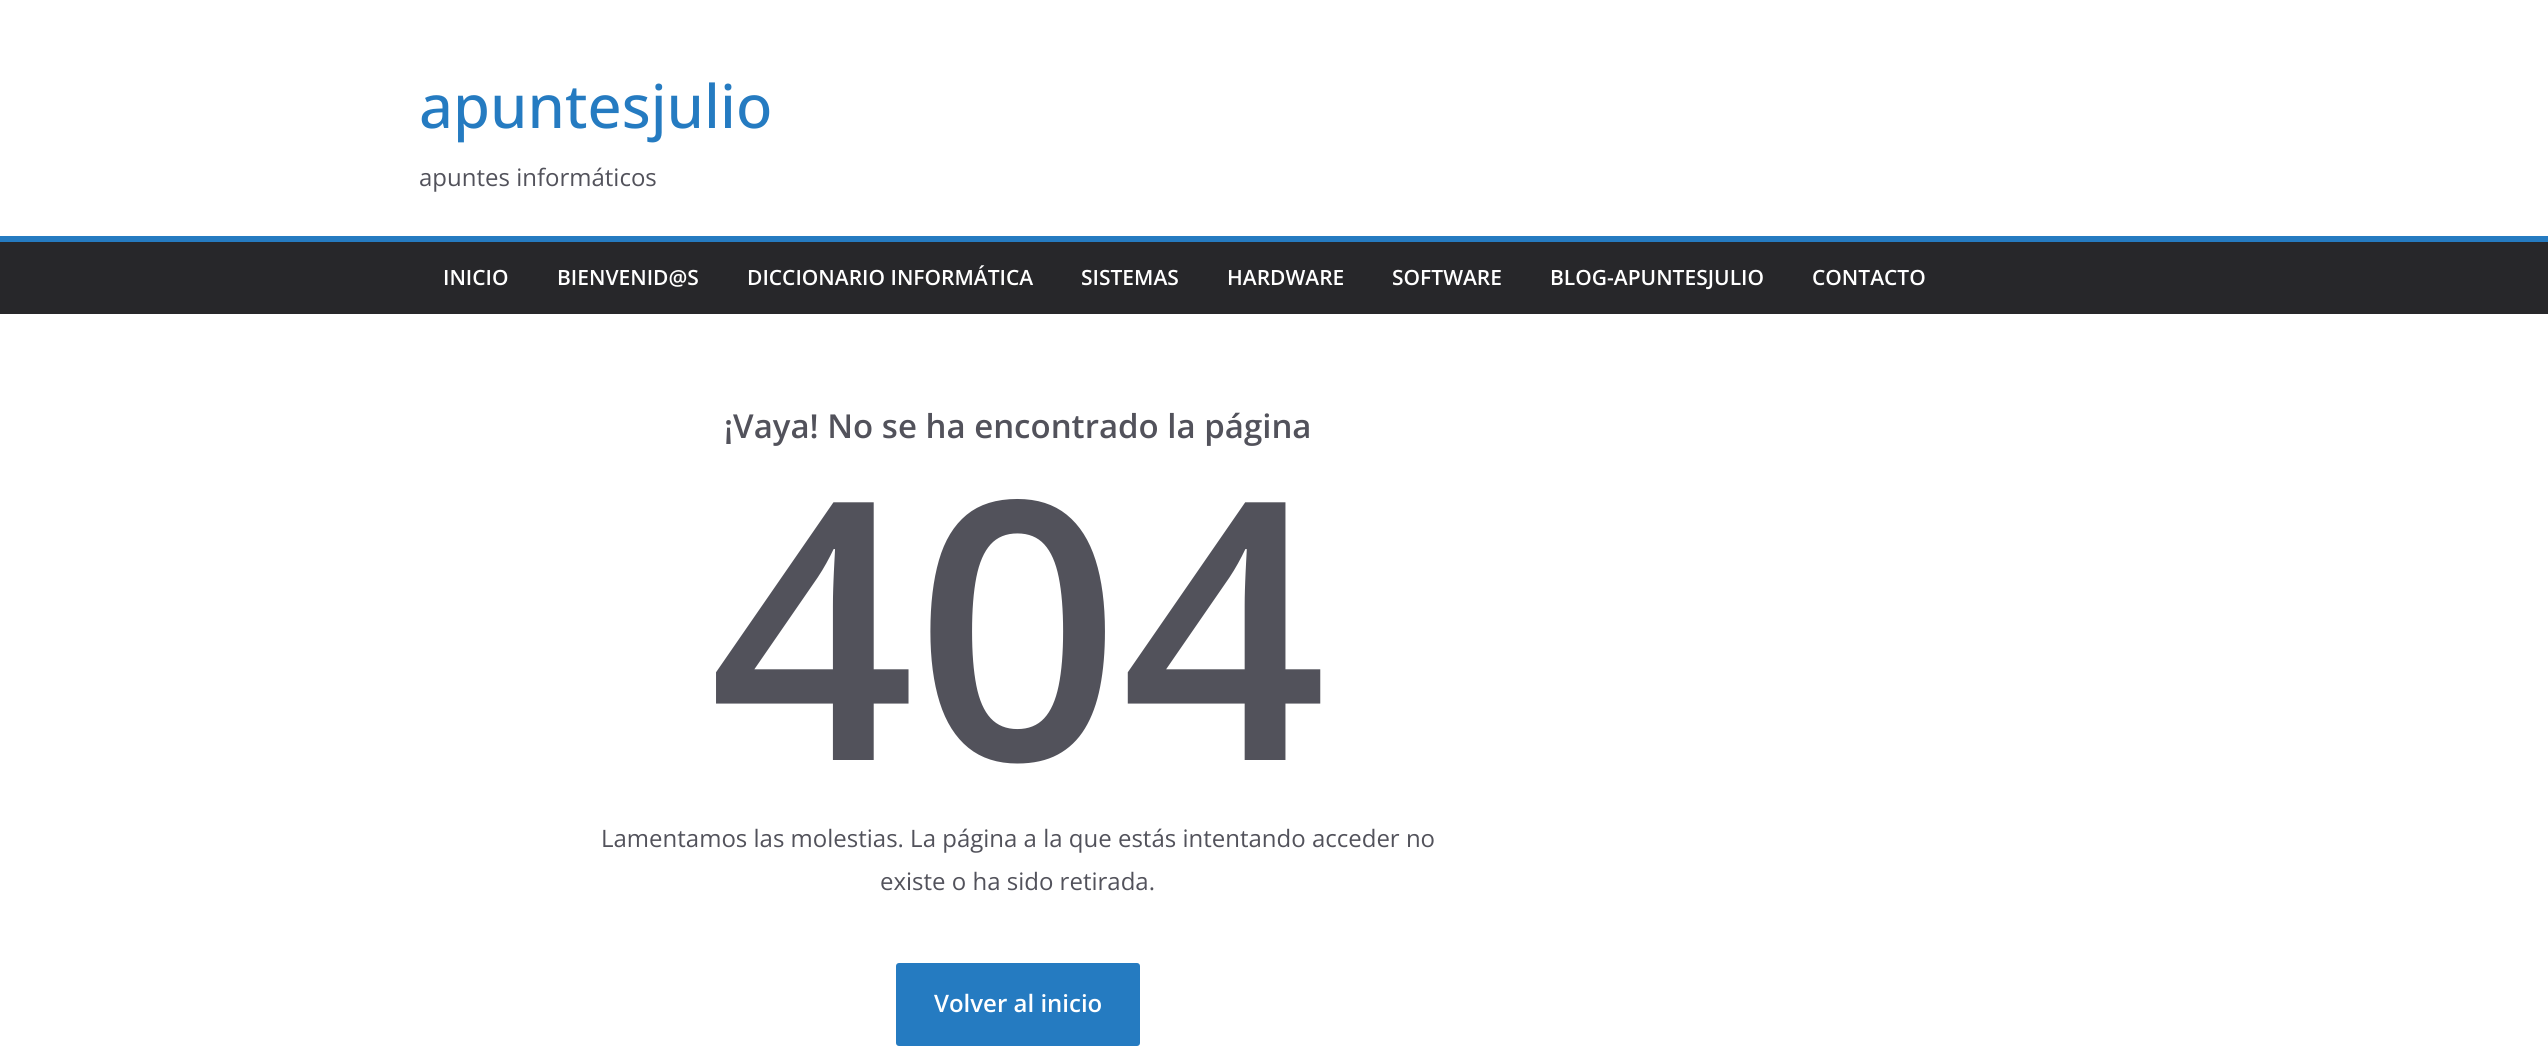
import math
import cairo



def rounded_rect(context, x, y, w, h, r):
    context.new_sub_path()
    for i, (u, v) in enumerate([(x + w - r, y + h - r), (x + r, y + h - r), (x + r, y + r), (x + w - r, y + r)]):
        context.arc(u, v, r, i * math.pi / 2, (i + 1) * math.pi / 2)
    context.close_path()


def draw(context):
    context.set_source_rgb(1, 1, 1)
    context.paint()
    context.set_source_rgb(39 / 255, 39 / 255, 42 / 255)
    context.rectangle(0, 242, 2548, 72)
    context.fill()
    context.set_source_rgb(37 / 255, 123 / 255, 193 / 255)
    context.rectangle(0, 236, 2548, 6)
    context.fill()
    rounded_rect(context, 897, 964, 242, 81, 2)
    context.fill_preserve()
    context.stroke()
    context.select_font_face("Open Sans Medium")
    context.set_font_size(60)
    context.move_to(419, 128)
    context.show_text("apuntesjulio")
    context.select_font_face("Open Sans")
    context.set_font_size(24)
    context.set_source_rgb(82 / 255, 82 / 255, 91 / 255)
    context.move_to(419, 186)
    context.show_text("apuntes informáticos")
    context.select_font_face("Open Sans SemiBold")
    context.set_font_size(21)
    context.set_source_rgb(1, 1, 1)
    context.move_to(443, 285)
    context.show_text("INICIO")
    context.move_to(557, 285)
    context.show_text("BIENVENID@S")
    context.move_to(747, 285)
    context.show_text("DICCIONARIO INFORMÁTICA")
    context.move_to(1081, 285)
    context.show_text("SISTEMAS")
    context.move_to(1227, 285)
    context.show_text("HARDWARE")
    context.move_to(1392, 285)
    context.show_text("SOFTWARE")
    context.move_to(1550, 285)
    context.show_text("BLOG-APUNTESJULIO")
    context.move_to(1812, 285)
    context.show_text("CONTACTO")
    context.set_font_size(33)
    context.set_source_rgb(82 / 255, 82 / 255, 91 / 255)
    context.move_to(724, 438)
    context.show_text("¡Vaya! No se ha encontrado la página")
    context.set_font_size(360)
    context.move_to(709, 760)
    context.show_text("404")
    context.select_font_face("Open Sans")
    context.set_font_size(24)
    context.move_to(601, 847)
    context.show_text("Lamentamos las molestias. La página a la que estás intentando acceder no")
    context.move_to(880, 890)
    context.show_text("existe o ha sido retirada.")
    context.select_font_face("Open Sans SemiBold")
    context.set_source_rgb(1, 1, 1)
    context.move_to(934, 1012)
    context.show_text("Volver al inicio")


surface = cairo.ImageSurface(cairo.Format.RGB24, 2548, 1047)
context = cairo.Context(surface)
options = cairo.FontOptions()
options.set_hint_metrics(cairo.HintMetrics.OFF)
options.set_hint_style(cairo.HintStyle.NONE)
context.set_font_options(options)
context.set_miter_limit(4)
draw(context)
surface.write_to_png("out.png")
